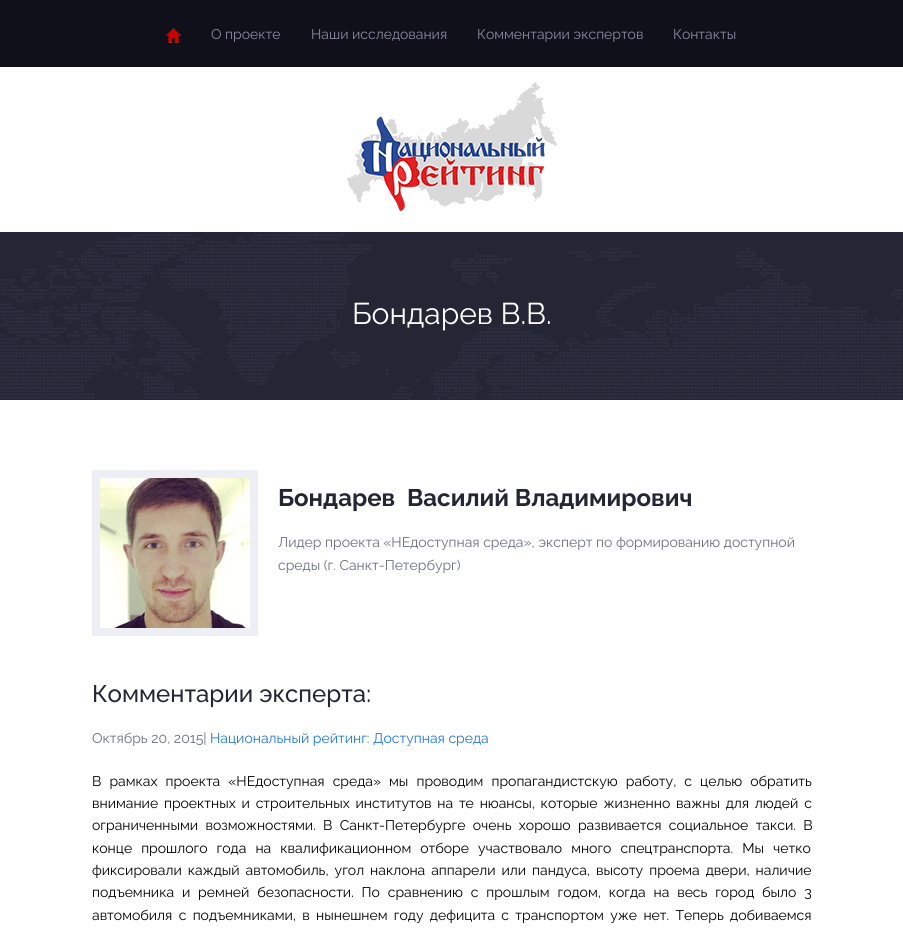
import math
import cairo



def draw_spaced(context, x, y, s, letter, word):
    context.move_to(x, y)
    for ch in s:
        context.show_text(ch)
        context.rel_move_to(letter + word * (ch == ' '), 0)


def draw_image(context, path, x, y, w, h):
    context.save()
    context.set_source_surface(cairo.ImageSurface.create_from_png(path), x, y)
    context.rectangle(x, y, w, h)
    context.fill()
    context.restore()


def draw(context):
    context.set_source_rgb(1, 1, 1)
    context.paint()
    context.set_source_rgb(15 / 255, 16 / 255, 26 / 255)
    context.rectangle(0, 0, 903, 67)
    context.fill()
    draw_image(context, "images/1.png", 166, 28, 15, 15)
    draw_image(context, "images/2.png", 347, 82, 210, 129)
    context.set_source_rgb(36 / 255, 38 / 255, 54 / 255)
    context.rectangle(0, 232, 903, 168)
    context.fill()
    draw_image(context, "images/3.png", 0, 232, 903, 167)
    context.set_source_rgb(238 / 255, 239 / 255, 244 / 255)
    context.rectangle(92, 470, 166, 166)
    context.fill()
    draw_image(context, "images/4.png", 100, 478, 150, 150)
    context.select_font_face("Raleway")
    context.set_font_size(14)
    context.set_source_rgb(137 / 255, 139 / 255, 162 / 255)
    context.move_to(211, 39)
    context.show_text("О проекте")
    context.move_to(311, 39)
    context.show_text("Наши исследования")
    context.move_to(477, 39)
    context.show_text("Комментарии экспертов")
    context.move_to(673, 39)
    context.show_text("Контакты")
    context.set_font_size(30)
    context.set_source_rgb(1, 1, 1)
    context.move_to(352, 324)
    context.show_text("Бондарев В.В.")
    context.select_font_face("Raleway", cairo.FontSlant.NORMAL, cairo.FontWeight.BOLD)
    context.set_font_size(24)
    context.set_source_rgb(36 / 255, 38 / 255, 54 / 255)
    context.move_to(278, 506)
    context.show_text("Бондарев")
    context.move_to(407, 506)
    context.show_text("Василий Владимирович")
    context.select_font_face("Raleway")
    context.set_font_size(14)
    context.set_source_rgb(107 / 255, 110 / 255, 128 / 255)
    context.move_to(278, 547)
    context.show_text("Лидер проекта «НЕдоступная среда», эксперт по формированию доступной")
    context.move_to(278, 570)
    context.show_text("среды (г. Санкт-Петербург)")
    context.select_font_face("Raleway Medium")
    context.set_font_size(24)
    context.set_source_rgb(36 / 255, 38 / 255, 54 / 255)
    context.move_to(92, 702)
    context.show_text("Комментарии эксперта:")
    context.select_font_face("Raleway")
    context.set_font_size(14)
    context.set_source_rgb(107 / 255, 110 / 255, 128 / 255)
    context.move_to(92, 743)
    context.show_text("Октябрь 20, 2015|")
    context.set_source_rgb(29 / 255, 118 / 255, 228 / 255)
    context.move_to(210, 743)
    context.show_text("Национальный рейтинг: Доступная среда")
    context.set_source_rgb(0, 0, 0)
    draw_spaced(context, 92, 786, "В рамках проекта «НЕдоступная среда» мы проводим пропагандистскую работу, с целью обратить", 0, 4.5)
    draw_spaced(context, 92, 808, "внимание проектных и строительных институтов на те нюансы, которые жизненно важны для людей с", 0, 2.25)
    draw_spaced(context, 92, 830, "ограниченными возможностями. В Санкт-Петербурге очень хорошо развивается социальное такси. В", 0, 3.75)
    draw_spaced(context, 92, 853, "конце прошлого года на квалификационном отборе участвовало много спецтранспорта. Мы четко", 0, 5.5)
    draw_spaced(context, 92, 875, "фиксировали каждый автомобиль, угол наклона аппарели или пандуса, высоту проема двери, наличие", 0, 2.4)
    draw_spaced(context, 92, 897, "подъемника и ремней безопасности. По сравнению с прошлым годом, когда на весь город было 3", 0, 4.25)
    draw_spaced(context, 92, 920, "автомобиля с подъемниками, в нынешнем году дефицита с транспортом уже нет. Теперь добиваемся", 0, 2.75)


surface = cairo.ImageSurface(cairo.Format.RGB24, 903, 933)
context = cairo.Context(surface)
options = cairo.FontOptions()
options.set_hint_metrics(cairo.HintMetrics.OFF)
options.set_hint_style(cairo.HintStyle.NONE)
context.set_font_options(options)
context.set_miter_limit(4)
draw(context)
surface.write_to_png("out.png")
